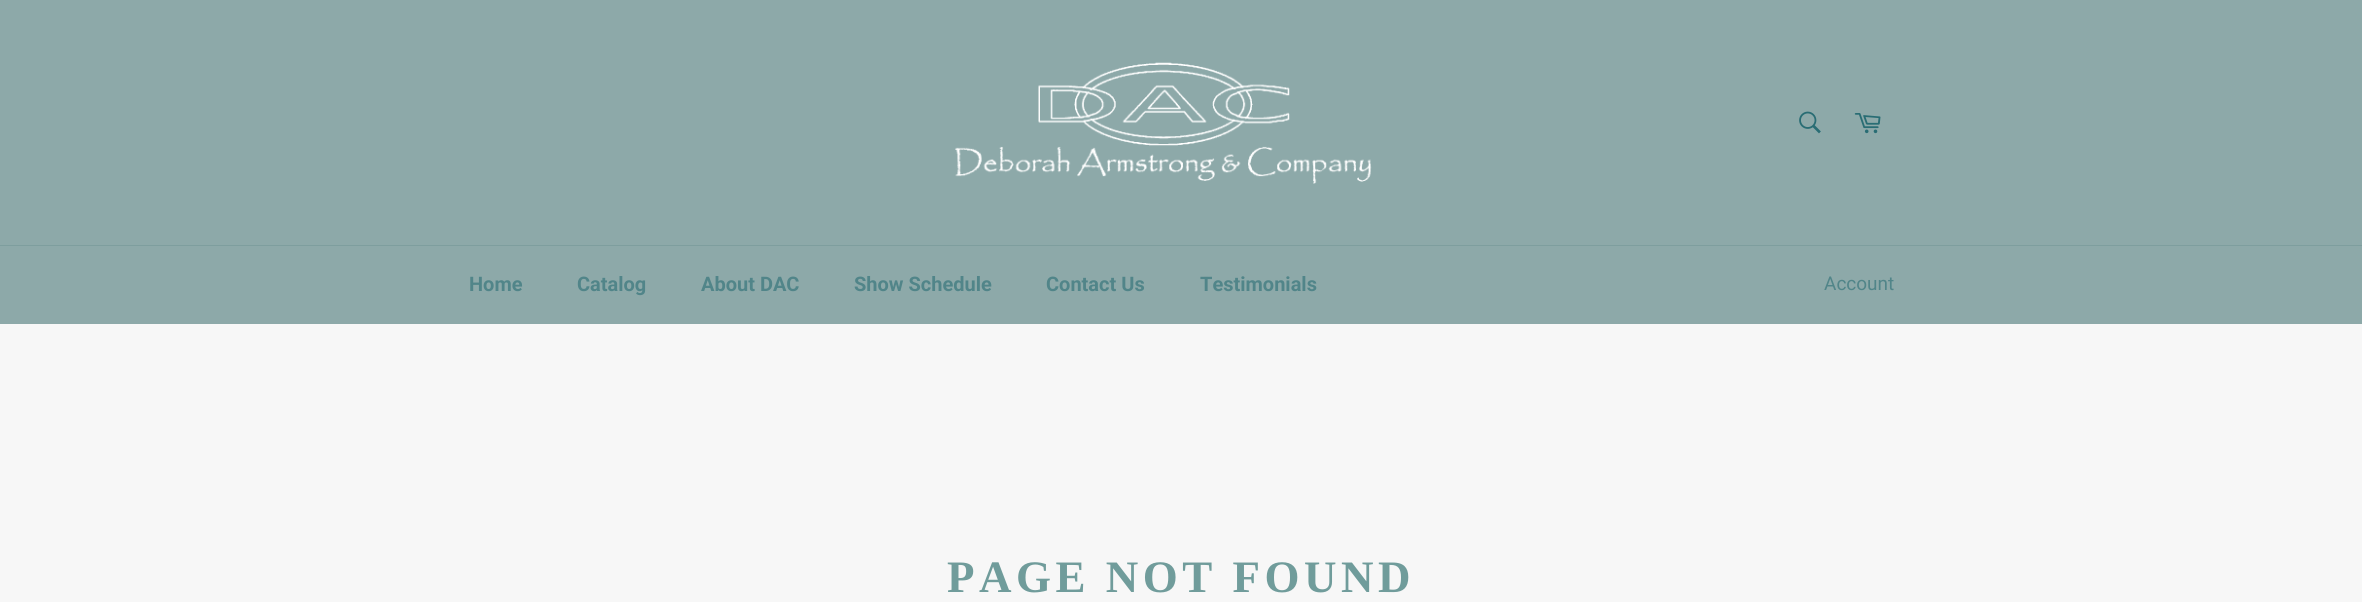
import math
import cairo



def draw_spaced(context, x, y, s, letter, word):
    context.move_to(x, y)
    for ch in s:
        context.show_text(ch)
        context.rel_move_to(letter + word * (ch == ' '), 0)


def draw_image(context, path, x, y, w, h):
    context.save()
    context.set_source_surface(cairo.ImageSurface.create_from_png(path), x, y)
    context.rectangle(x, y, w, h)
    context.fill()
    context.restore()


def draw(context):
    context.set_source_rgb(247 / 255, 247 / 255, 247 / 255)
    context.paint()
    context.set_source_rgb(141 / 255, 169 / 255, 169 / 255)
    context.rectangle(0, 0, 2362, 245)
    context.fill()
    draw_image(context, "images/1.png", 955, 62, 417, 122)
    draw_image(context, "images/2.png", 1799, 111, 22, 23)
    draw_image(context, "images/3.png", 1854, 113, 27, 21)
    context.rectangle(0, 246, 2362, 78)
    context.fill()
    context.set_source_rgb(126 / 255, 158 / 255, 158 / 255)
    context.rectangle(0, 245, 2362, 1)
    context.fill()
    context.select_font_face("Roboto", cairo.FontSlant.NORMAL, cairo.FontWeight.BOLD)
    context.set_font_size(20)
    context.set_source_rgb(81 / 255, 133 / 255, 137 / 255)
    context.move_to(469, 291)
    context.show_text("Home")
    context.move_to(577, 291)
    context.show_text("Catalog")
    context.move_to(701, 291)
    context.show_text("About DAC")
    context.move_to(854, 291)
    context.show_text("Show Schedule")
    context.move_to(1046, 291)
    context.show_text("Contact Us")
    context.move_to(1200, 291)
    context.show_text("Testimonials")
    context.select_font_face("Roboto")
    context.set_font_size(19)
    context.move_to(1824, 290)
    context.show_text("Account")
    context.select_font_face("Liberation Serif", cairo.FontSlant.NORMAL, cairo.FontWeight.BOLD)
    context.set_font_size(45)
    context.set_source_rgb(112 / 255, 156 / 255, 155 / 255)
    draw_spaced(context, 947, 592, "PAGE NOT FOUND", 4.5, 0)


surface = cairo.ImageSurface(cairo.Format.RGB24, 2362, 602)
context = cairo.Context(surface)
options = cairo.FontOptions()
options.set_hint_metrics(cairo.HintMetrics.OFF)
options.set_hint_style(cairo.HintStyle.NONE)
context.set_font_options(options)
context.set_miter_limit(4)
draw(context)
surface.write_to_png("out.png")
